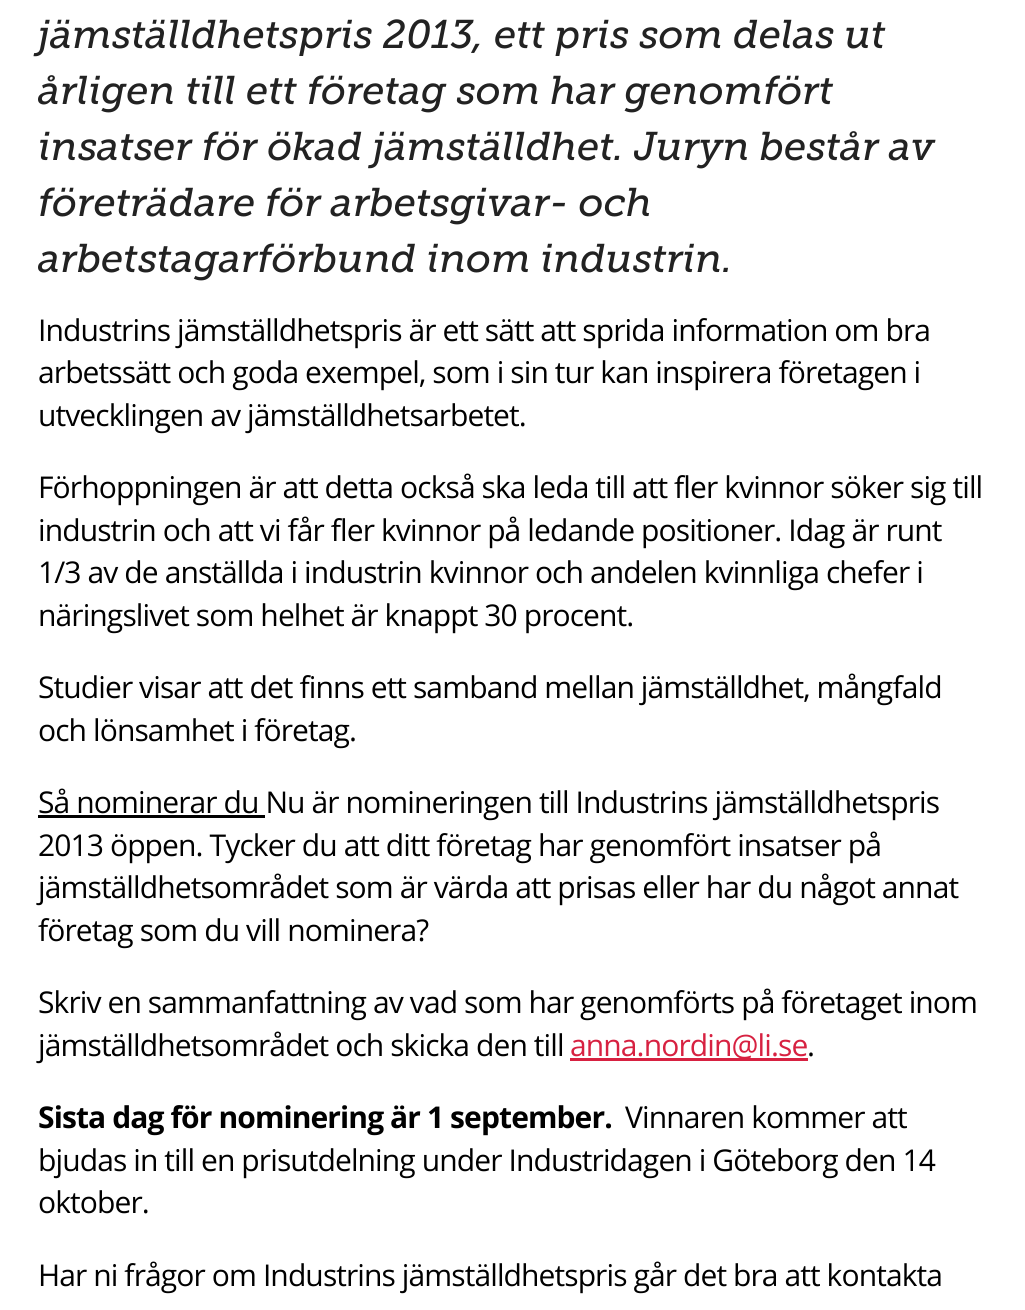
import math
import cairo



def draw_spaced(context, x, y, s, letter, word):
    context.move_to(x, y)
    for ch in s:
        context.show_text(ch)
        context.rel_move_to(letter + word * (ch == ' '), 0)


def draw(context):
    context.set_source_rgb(1, 1, 1)
    context.paint()
    context.set_source_rgb(0, 0, 0)
    context.rectangle(38, 815, 227, 3)
    context.fill()
    context.set_source_rgb(215 / 255, 33 / 255, 65 / 255)
    context.rectangle(570, 1058, 238, 3)
    context.fill()
    context.select_font_face("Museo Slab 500 Medium", cairo.FontSlant.ITALIC)
    context.set_font_size(40)
    context.set_source_rgb(34 / 255, 34 / 255, 34 / 255)
    context.move_to(38, 48)
    context.show_text("jämställdhetspris 2013, ett pris som delas ut")
    context.move_to(38, 104)
    context.show_text("årligen till ett företag som har genomfört")
    context.move_to(38, 160)
    context.show_text("insatser för ökad jämställdhet. Juryn består av")
    context.move_to(38, 216)
    context.show_text("företrädare för arbetsgivar- och")
    context.move_to(38, 272)
    context.show_text("arbetstagarförbund inom industrin.")
    context.select_font_face("Open Sans")
    context.set_font_size(30)
    context.set_source_rgb(0, 0, 0)
    draw_spaced(context, 38, 341, "Industrins jämställdhetspris är ett sätt att sprida information om bra", -0.9, 0)
    draw_spaced(context, 38, 383, "arbetssätt och goda exempel, som i sin tur kan inspirera företagen i", -0.9, 0)
    draw_spaced(context, 38, 426, "utvecklingen av jämställdhetsarbetet.", -0.9, 0)
    draw_spaced(context, 38, 498, "Förhoppningen är att detta också ska leda till att fler kvinnor söker sig till", -0.9, 0)
    draw_spaced(context, 38, 541, "industrin och att vi får fler kvinnor på ledande positioner. Idag är runt", -0.9, 0)
    draw_spaced(context, 38, 583, "1/3 av de anställda i industrin kvinnor och andelen kvinnliga chefer i", -0.9, 0)
    draw_spaced(context, 38, 626, "näringslivet som helhet är knappt 30 procent.", -0.9, 0)
    draw_spaced(context, 38, 698, "Studier visar att det finns ett samband mellan jämställdhet, mångfald", -0.9, 0)
    draw_spaced(context, 38, 741, "och lönsamhet i företag.", -0.9, 0)
    draw_spaced(context, 38, 813, "Så nominerar du Nu är nomineringen till Industrins jämställdhetspris", -0.9, 0)
    draw_spaced(context, 38, 856, "2013 öppen. Tycker du att ditt företag har genomfört insatser på", -0.9, 0)
    draw_spaced(context, 38, 898, "jämställdhetsområdet som är värda att prisas eller har du något annat", -0.9, 0)
    draw_spaced(context, 38, 941, "företag som du vill nominera?", -0.9, 0)
    draw_spaced(context, 38, 1013, "Skriv en sammanfattning av vad som har genomförts på företaget inom", -0.9, 0)
    draw_spaced(context, 38, 1056, "jämställdhetsområdet och skicka den till", -0.9, 0)
    context.set_source_rgb(215 / 255, 33 / 255, 65 / 255)
    draw_spaced(context, 570, 1056, "anna.nordin@li.se", -0.9, 0)
    context.set_source_rgb(0, 0, 0)
    draw_spaced(context, 807, 1056, ".", -0.9, 0)
    context.select_font_face("Open Sans", cairo.FontSlant.NORMAL, cairo.FontWeight.BOLD)
    draw_spaced(context, 38, 1128, "Sista dag för nominering är 1 september.", -0.9, 0)
    context.select_font_face("Open Sans")
    draw_spaced(context, 625, 1128, "Vinnaren kommer att", -0.9, 0)
    draw_spaced(context, 38, 1171, "bjudas in till en prisutdelning under Industridagen i Göteborg den 14", -0.9, 0)
    draw_spaced(context, 38, 1213, "oktober.", -0.9, 0)
    draw_spaced(context, 38, 1286, "Har ni frågor om Industrins jämställdhetspris går det bra att kontakta", -0.9, 0)


surface = cairo.ImageSurface(cairo.Format.RGB24, 1025, 1310)
context = cairo.Context(surface)
options = cairo.FontOptions()
options.set_hint_metrics(cairo.HintMetrics.OFF)
options.set_hint_style(cairo.HintStyle.NONE)
context.set_font_options(options)
context.set_miter_limit(4)
draw(context)
surface.write_to_png("out.png")
